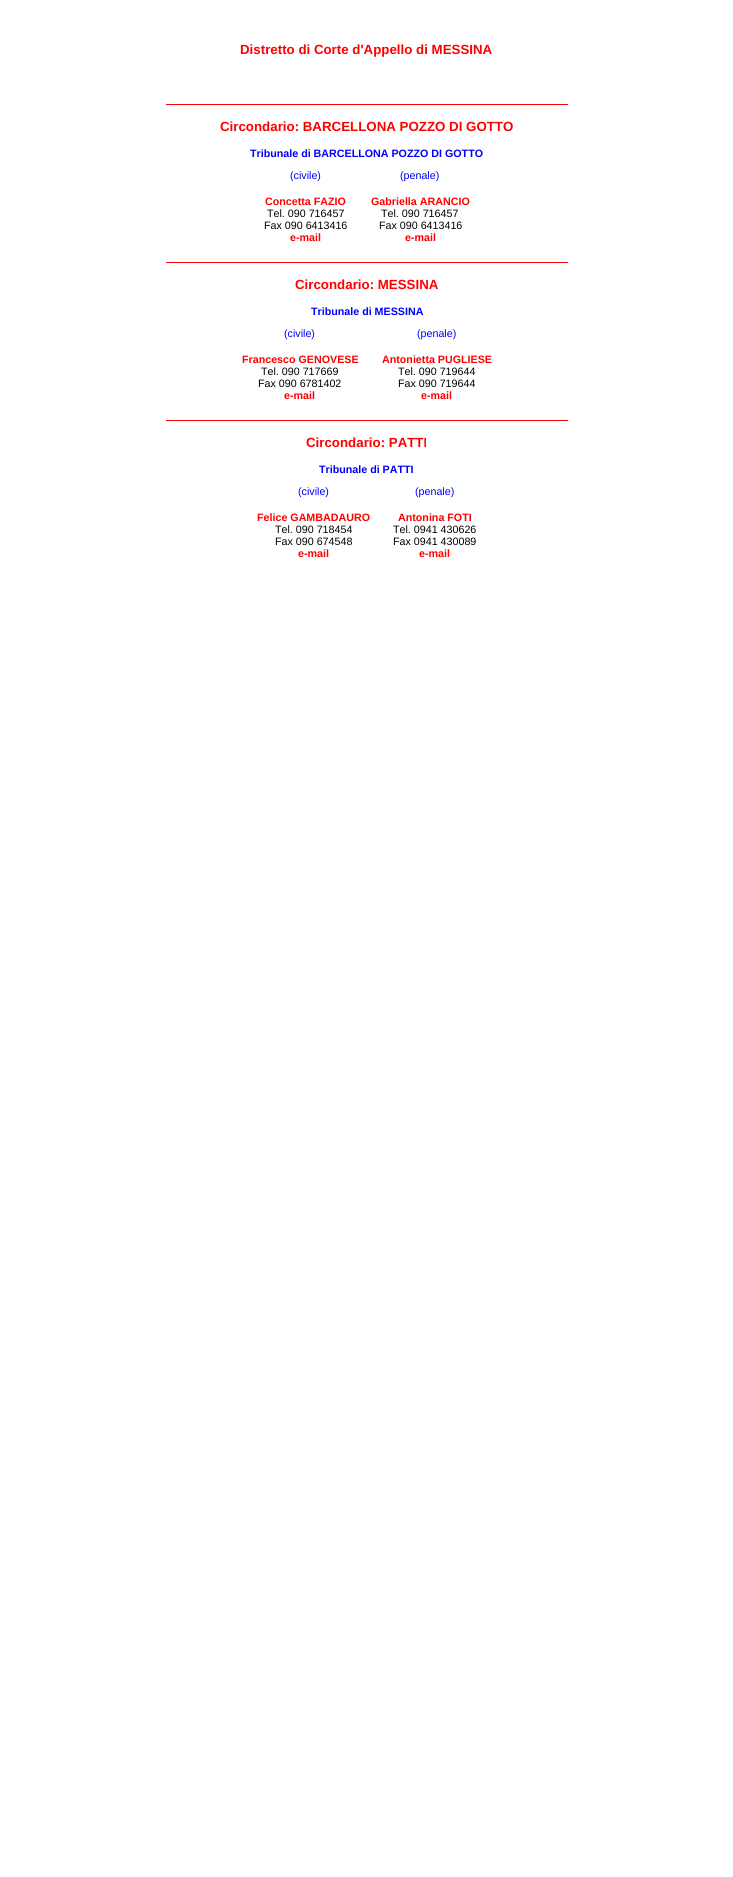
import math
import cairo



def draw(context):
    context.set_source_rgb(1, 1, 1)
    context.paint()
    context.set_source_rgb(1, 0, 0)
    context.rectangle(166, 104, 402, 1)
    context.fill()
    context.rectangle(166, 262, 402, 1)
    context.fill()
    context.rectangle(166, 420, 402, 1)
    context.fill()
    context.select_font_face("Liberation Sans", cairo.FontSlant.NORMAL, cairo.FontWeight.BOLD)
    context.set_font_size(13.3)
    context.move_to(240, 54)
    context.show_text("Distretto di Corte d'Appello di MESSINA")
    context.move_to(220, 131)
    context.show_text("Circondario: BARCELLONA POZZO DI GOTTO")
    context.set_font_size(10.7)
    context.set_source_rgb(0, 0, 1)
    context.move_to(250, 157)
    context.show_text("Tribunale di BARCELLONA POZZO DI GOTTO")
    context.select_font_face("Liberation Sans")
    context.move_to(290, 179)
    context.show_text("(civile)")
    context.select_font_face("Liberation Sans", cairo.FontSlant.NORMAL, cairo.FontWeight.BOLD)
    context.set_source_rgb(1, 0, 0)
    context.move_to(265, 205)
    context.show_text("Concetta FAZIO")
    context.select_font_face("Liberation Sans")
    context.set_source_rgb(0, 0, 0)
    context.move_to(267, 217)
    context.show_text("Tel. 090 716457")
    context.move_to(264, 229)
    context.show_text("Fax 090 6413416")
    context.select_font_face("Liberation Sans", cairo.FontSlant.NORMAL, cairo.FontWeight.BOLD)
    context.set_source_rgb(1, 0, 0)
    context.move_to(290, 241)
    context.show_text("e-mail")
    context.select_font_face("Liberation Sans")
    context.set_source_rgb(0, 0, 1)
    context.move_to(400, 179)
    context.show_text("(penale)")
    context.select_font_face("Liberation Sans", cairo.FontSlant.NORMAL, cairo.FontWeight.BOLD)
    context.set_source_rgb(1, 0, 0)
    context.move_to(371, 205)
    context.show_text("Gabriella ARANCIO")
    context.select_font_face("Liberation Sans")
    context.set_source_rgb(0, 0, 0)
    context.move_to(381, 217)
    context.show_text("Tel. 090 716457")
    context.move_to(379, 229)
    context.show_text("Fax 090 6413416")
    context.select_font_face("Liberation Sans", cairo.FontSlant.NORMAL, cairo.FontWeight.BOLD)
    context.set_source_rgb(1, 0, 0)
    context.move_to(405, 241)
    context.show_text("e-mail")
    context.set_font_size(13.3)
    context.move_to(295, 289)
    context.show_text("Circondario: MESSINA")
    context.set_font_size(10.7)
    context.set_source_rgb(0, 0, 1)
    context.move_to(311, 315)
    context.show_text("Tribunale di MESSINA")
    context.select_font_face("Liberation Sans")
    context.move_to(284, 337)
    context.show_text("(civile)")
    context.select_font_face("Liberation Sans", cairo.FontSlant.NORMAL, cairo.FontWeight.BOLD)
    context.set_source_rgb(1, 0, 0)
    context.move_to(242, 363)
    context.show_text("Francesco GENOVESE")
    context.select_font_face("Liberation Sans")
    context.set_source_rgb(0, 0, 0)
    context.move_to(261, 375)
    context.show_text("Tel. 090 717669")
    context.move_to(258, 387)
    context.show_text("Fax 090 6781402")
    context.select_font_face("Liberation Sans", cairo.FontSlant.NORMAL, cairo.FontWeight.BOLD)
    context.set_source_rgb(1, 0, 0)
    context.move_to(284, 399)
    context.show_text("e-mail")
    context.select_font_face("Liberation Sans")
    context.set_source_rgb(0, 0, 1)
    context.move_to(417, 337)
    context.show_text("(penale)")
    context.select_font_face("Liberation Sans", cairo.FontSlant.NORMAL, cairo.FontWeight.BOLD)
    context.set_source_rgb(1, 0, 0)
    context.move_to(382, 363)
    context.show_text("Antonietta PUGLIESE")
    context.select_font_face("Liberation Sans")
    context.set_source_rgb(0, 0, 0)
    context.move_to(398, 375)
    context.show_text("Tel. 090 719644")
    context.move_to(398, 387)
    context.show_text("Fax 090 719644")
    context.select_font_face("Liberation Sans", cairo.FontSlant.NORMAL, cairo.FontWeight.BOLD)
    context.set_source_rgb(1, 0, 0)
    context.move_to(421, 399)
    context.show_text("e-mail")
    context.set_font_size(13.3)
    context.move_to(306, 447)
    context.show_text("Circondario: PATTI")
    context.set_font_size(10.7)
    context.set_source_rgb(0, 0, 1)
    context.move_to(319, 473)
    context.show_text("Tribunale di PATTI")
    context.select_font_face("Liberation Sans")
    context.move_to(298, 495)
    context.show_text("(civile)")
    context.select_font_face("Liberation Sans", cairo.FontSlant.NORMAL, cairo.FontWeight.BOLD)
    context.set_source_rgb(1, 0, 0)
    context.move_to(257, 521)
    context.show_text("Felice GAMBADAURO")
    context.select_font_face("Liberation Sans")
    context.set_source_rgb(0, 0, 0)
    context.move_to(275, 533)
    context.show_text("Tel. 090 718454")
    context.move_to(275, 545)
    context.show_text("Fax 090 674548")
    context.select_font_face("Liberation Sans", cairo.FontSlant.NORMAL, cairo.FontWeight.BOLD)
    context.set_source_rgb(1, 0, 0)
    context.move_to(298, 557)
    context.show_text("e-mail")
    context.select_font_face("Liberation Sans")
    context.set_source_rgb(0, 0, 1)
    context.move_to(415, 495)
    context.show_text("(penale)")
    context.select_font_face("Liberation Sans", cairo.FontSlant.NORMAL, cairo.FontWeight.BOLD)
    context.set_source_rgb(1, 0, 0)
    context.move_to(398, 521)
    context.show_text("Antonina FOTI")
    context.select_font_face("Liberation Sans")
    context.set_source_rgb(0, 0, 0)
    context.move_to(393, 533)
    context.show_text("Tel. 0941 430626")
    context.move_to(393, 545)
    context.show_text("Fax 0941 430089")
    context.select_font_face("Liberation Sans", cairo.FontSlant.NORMAL, cairo.FontWeight.BOLD)
    context.set_source_rgb(1, 0, 0)
    context.move_to(419, 557)
    context.show_text("e-mail")


surface = cairo.ImageSurface(cairo.Format.RGB24, 733, 1877)
context = cairo.Context(surface)
options = cairo.FontOptions()
options.set_hint_metrics(cairo.HintMetrics.OFF)
options.set_hint_style(cairo.HintStyle.NONE)
context.set_font_options(options)
context.set_miter_limit(4)
draw(context)
surface.write_to_png("out.png")
